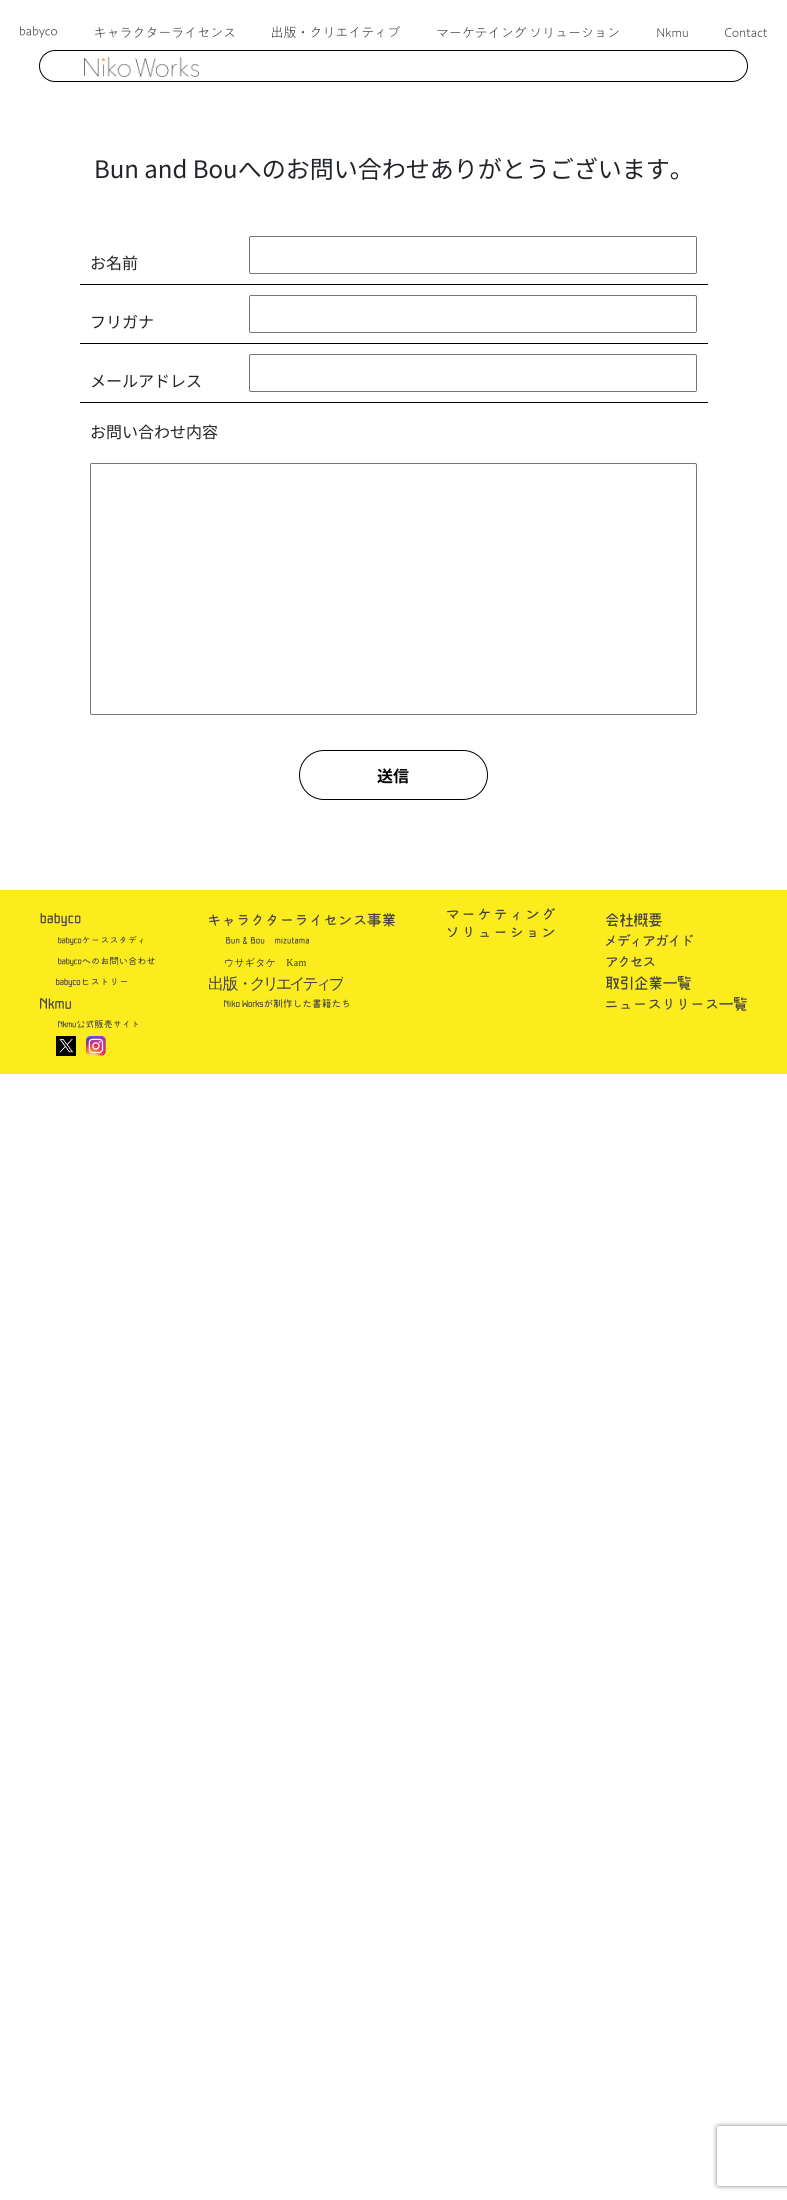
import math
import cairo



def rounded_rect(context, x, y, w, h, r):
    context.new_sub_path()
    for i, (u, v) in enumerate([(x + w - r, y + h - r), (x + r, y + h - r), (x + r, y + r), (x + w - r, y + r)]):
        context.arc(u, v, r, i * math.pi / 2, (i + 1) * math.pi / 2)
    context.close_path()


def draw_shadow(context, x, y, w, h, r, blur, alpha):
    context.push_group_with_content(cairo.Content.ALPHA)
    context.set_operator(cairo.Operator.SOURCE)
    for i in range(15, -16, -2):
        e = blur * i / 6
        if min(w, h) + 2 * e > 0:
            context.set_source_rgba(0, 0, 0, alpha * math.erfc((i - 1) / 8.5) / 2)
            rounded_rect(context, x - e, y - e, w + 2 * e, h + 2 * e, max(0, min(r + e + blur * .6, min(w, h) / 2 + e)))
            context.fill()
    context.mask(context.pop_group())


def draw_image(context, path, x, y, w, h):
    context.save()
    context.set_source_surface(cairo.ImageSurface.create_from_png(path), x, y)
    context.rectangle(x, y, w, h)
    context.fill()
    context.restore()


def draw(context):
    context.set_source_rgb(1, 1, 1)
    context.paint()
    draw_image(context, "images/1.png", 20, 26, 37, 12)
    draw_image(context, "images/2.png", 95, 27, 139, 11)
    draw_image(context, "images/3.png", 272, 26, 128, 12)
    draw_image(context, "images/4.png", 437, 27, 182, 11)
    draw_image(context, "images/5.png", 657, 28, 31, 9)
    draw_image(context, "images/6.png", 725, 28, 42, 9)
    rounded_rect(context, 39.5, 50.5, 708, 31, 15.5)
    context.set_source_rgb(0, 0, 0)
    context.set_line_width(1)
    context.stroke()
    draw_image(context, "images/7.png", 84, 57, 115, 20)
    context.rectangle(80, 284, 628, 1)
    context.fill()
    rounded_rect(context, 249.5, 236.5, 447, 37, 1.5)
    context.set_source_rgb(118 / 255, 118 / 255, 118 / 255)
    context.stroke()
    context.set_source_rgb(0, 0, 0)
    context.rectangle(80, 343, 628, 1)
    context.fill()
    rounded_rect(context, 249.5, 295.5, 447, 37, 1.5)
    context.set_source_rgb(118 / 255, 118 / 255, 118 / 255)
    context.stroke()
    context.set_source_rgb(0, 0, 0)
    context.rectangle(80, 402, 628, 1)
    context.fill()
    rounded_rect(context, 249.5, 354.5, 447, 37, 1.5)
    context.set_source_rgb(118 / 255, 118 / 255, 118 / 255)
    context.stroke()
    rounded_rect(context, 90.5, 463.5, 606, 251, 1.5)
    context.stroke()
    rounded_rect(context, 299.5, 750.5, 188, 49, 24.5)
    context.set_source_rgb(0, 0, 0)
    context.stroke()
    context.set_source_rgb(253 / 255, 236 / 255, 29 / 255)
    context.rectangle(0, 890, 787, 184)
    context.fill()
    draw_image(context, "images/8.png", 40, 913, 41, 13)
    draw_image(context, "images/9.png", 58, 936, 85, 9)
    draw_image(context, "images/10.png", 58, 957, 97, 9)
    draw_image(context, "images/11.png", 56, 978, 71, 9)
    draw_image(context, "images/12.png", 40, 998, 31, 11)
    draw_image(context, "images/13.png", 58, 1020, 80, 8)
    draw_image(context, "images/14.png", 56, 1036, 20, 20)
    draw_image(context, "images/15.png", 86, 1036, 20, 20)
    draw_image(context, "images/16.png", 208, 913, 187, 14)
    draw_image(context, "images/17.png", 226, 937, 83, 7)
    draw_image(context, "images/18.png", 225, 957, 81, 10)
    draw_image(context, "images/19.png", 209, 975, 134, 16)
    draw_image(context, "images/20.png", 224, 999, 125, 9)
    draw_image(context, "images/21.png", 447, 908, 108, 29)
    draw_image(context, "images/22.png", 606, 913, 56, 14)
    draw_image(context, "images/23.png", 606, 934, 87, 13)
    draw_image(context, "images/24.png", 606, 956, 49, 11)
    draw_image(context, "images/25.png", 606, 976, 85, 14)
    draw_image(context, "images/26.png", 606, 997, 141, 14)
    context.save()
    context.set_fill_rule(cairo.FillRule.EVEN_ODD)
    context.new_path()
    context.move_to(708, 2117)
    context.line_to(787, 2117)
    context.line_to(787, 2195)
    context.line_to(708, 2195)
    context.close_path()
    context.move_to(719, 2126)
    context.line_to(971, 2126)
    context.curve_to(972, 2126, 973, 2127, 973, 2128)
    context.line_to(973, 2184)
    context.curve_to(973, 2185, 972, 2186, 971, 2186)
    context.line_to(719, 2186)
    context.curve_to(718, 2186, 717, 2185, 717, 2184)
    context.line_to(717, 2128)
    context.curve_to(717, 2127, 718, 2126, 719, 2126)
    context.close_path()
    context.clip()
    context.set_source_rgb(128 / 255, 128 / 255, 128 / 255)
    draw_shadow(context, 717, 2126, 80, 60, 2, 2.5, 1)
    context.restore()
    context.select_font_face("Noto Sans JP")
    context.set_font_size(24)
    context.set_source_rgb(33 / 255, 37 / 255, 41 / 255)
    context.move_to(94, 178)
    context.show_text("Bun and Bouへのお問い合わせありがとうございます。")
    context.set_font_size(16)
    context.move_to(90, 269)
    context.show_text("お名前")
    context.move_to(90, 328)
    context.show_text("フリガナ")
    context.move_to(90, 387)
    context.show_text("メールアドレス")
    context.move_to(90, 438)
    context.show_text("お問い合わせ内容")
    context.select_font_face("Noto Sans JP", cairo.FontSlant.NORMAL, cairo.FontWeight.BOLD)
    context.set_source_rgb(0, 0, 0)
    context.move_to(377, 782)
    context.show_text("送信")


surface = cairo.ImageSurface(cairo.Format.RGB24, 787, 2200)
context = cairo.Context(surface)
options = cairo.FontOptions()
options.set_hint_metrics(cairo.HintMetrics.OFF)
options.set_hint_style(cairo.HintStyle.NONE)
context.set_font_options(options)
context.set_miter_limit(4)
draw(context)
surface.write_to_png("out.png")
